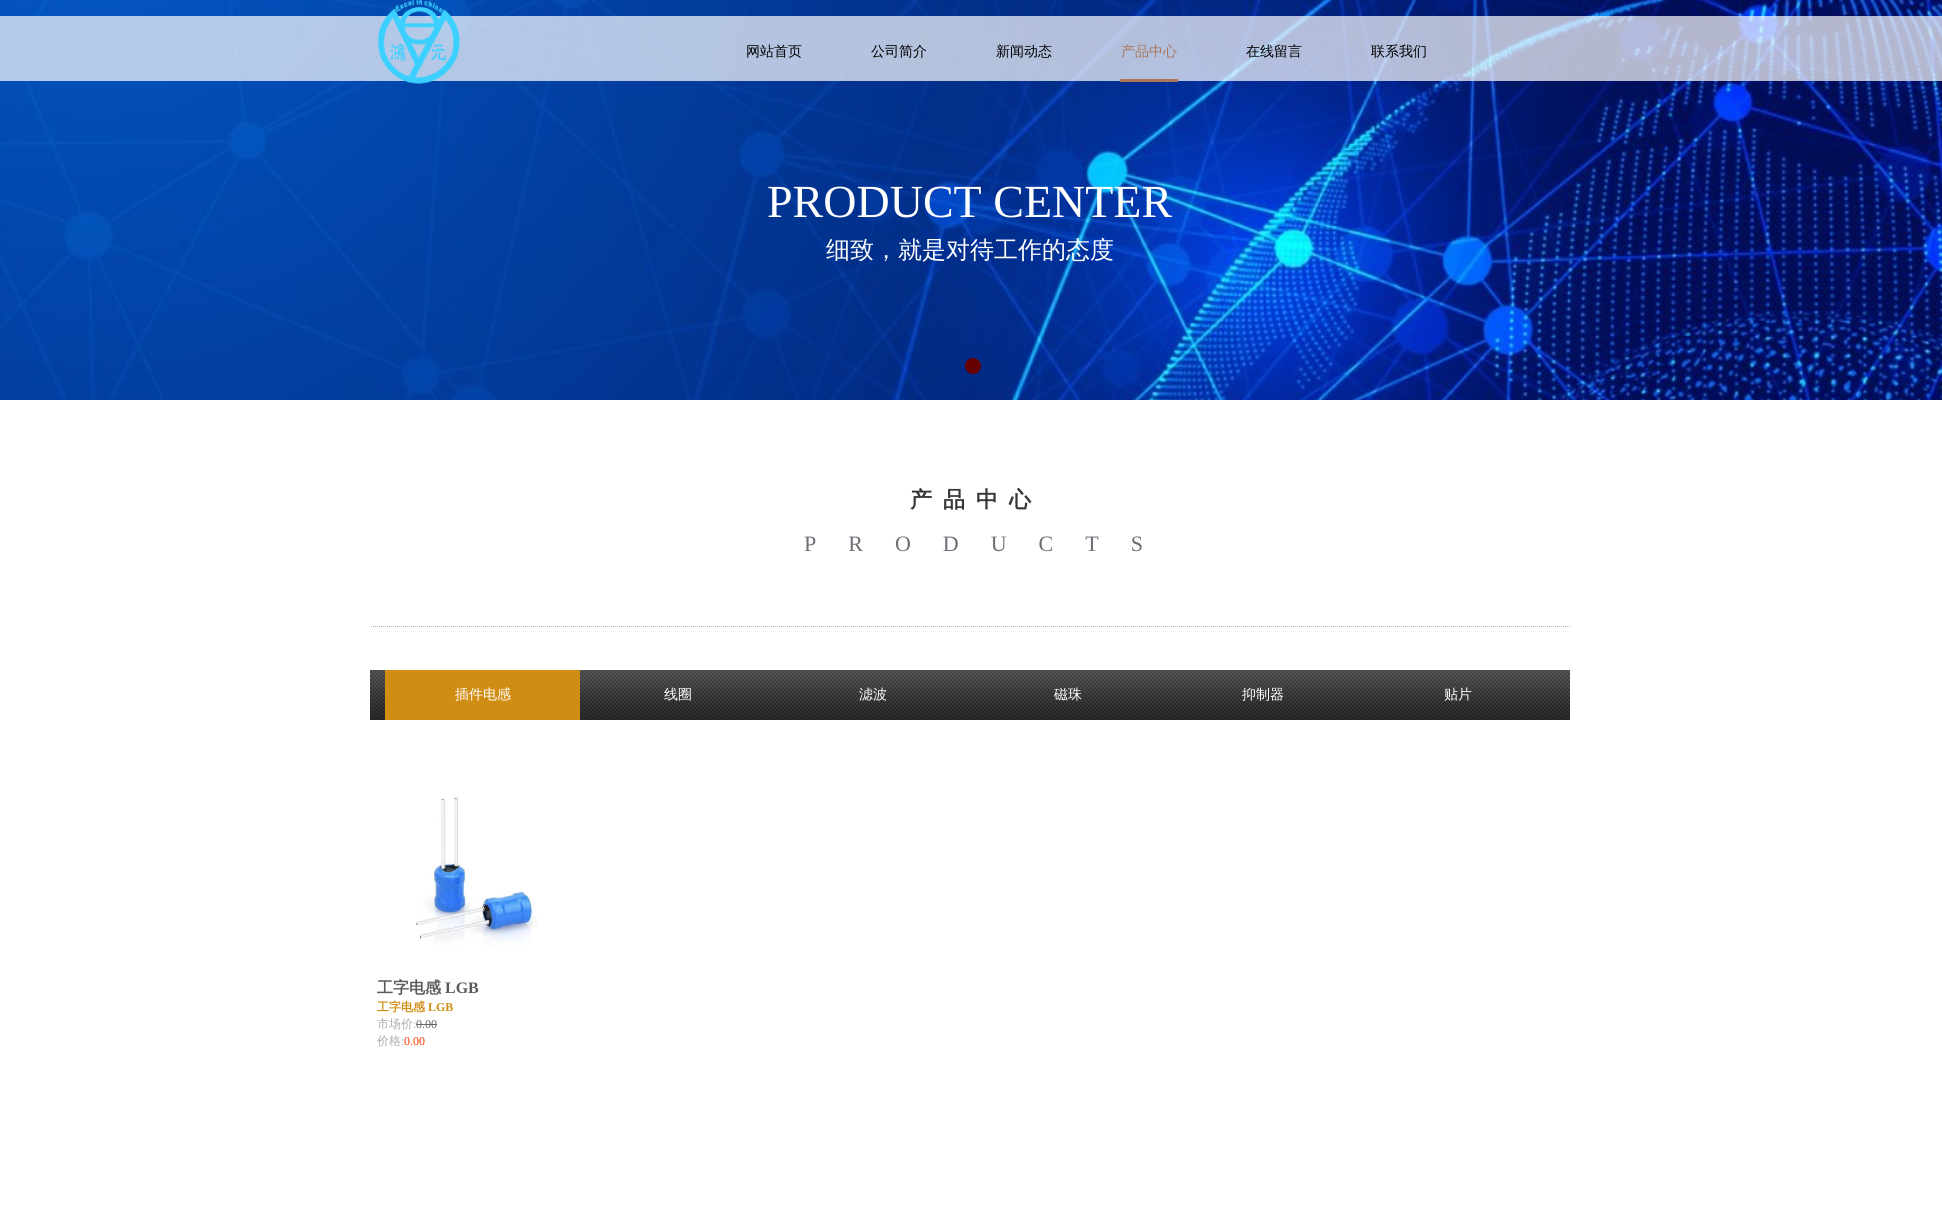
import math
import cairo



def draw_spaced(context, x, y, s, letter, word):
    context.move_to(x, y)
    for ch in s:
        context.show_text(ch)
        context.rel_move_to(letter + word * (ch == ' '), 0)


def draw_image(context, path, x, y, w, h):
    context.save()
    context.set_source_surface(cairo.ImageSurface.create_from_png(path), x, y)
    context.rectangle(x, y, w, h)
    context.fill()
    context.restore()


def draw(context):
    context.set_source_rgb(1, 1, 1)
    context.paint()
    draw_image(context, "images/1.png", 0, 0, 1942, 400)
    context.set_source_rgb(102 / 255, 0, 0)
    context.arc(973, 366, 7, 0, 2 * math.pi)
    context.fill_preserve()
    context.stroke()
    context.set_source_rgba(1, 1, 1, 0.7)
    context.rectangle(0, 16, 1942, 65)
    context.fill()
    draw_image(context, "images/2.png", 377, 0, 83, 84)
    context.set_source_rgb(174 / 255, 117 / 255, 87 / 255)
    context.rectangle(1120, 79, 58, 3)
    context.fill()
    draw_image(context, "images/3.png", 371, 626, 1199, 1)
    draw_image(context, "images/4.png", 370, 670, 1200, 50)
    context.set_source_rgb(208 / 255, 141 / 255, 19 / 255)
    context.rectangle(385, 670, 195, 50)
    context.fill()
    draw_image(context, "images/5.png", 416, 796, 122, 150)
    context.set_source_rgb(102 / 255, 102 / 255, 102 / 255)
    context.rectangle(416, 1024, 21, 1)
    context.fill()
    context.select_font_face("WenQuanYi Zen Hei Medium")
    context.set_font_size(14)
    context.set_source_rgb(0, 0, 0)
    context.move_to(746, 56)
    context.show_text("网站首页")
    context.move_to(871, 56)
    context.show_text("公司简介")
    context.move_to(996, 56)
    context.show_text("新闻动态")
    context.set_source_rgb(174 / 255, 117 / 255, 87 / 255)
    context.move_to(1121, 56)
    context.show_text("产品中心")
    context.set_source_rgb(0, 0, 0)
    context.move_to(1246, 56)
    context.show_text("在线留言")
    context.move_to(1371, 56)
    context.show_text("联系我们")
    context.select_font_face("Liberation Serif")
    context.set_font_size(46)
    context.set_source_rgb(1, 1, 1)
    context.move_to(767, 217)
    context.show_text("PRODUCT CENTER")
    context.select_font_face("WenQuanYi Zen Hei Medium")
    context.set_font_size(24)
    context.move_to(826, 258)
    context.show_text("细致，就是对待工作的态度")
    context.select_font_face("WenQuanYi Zen Hei", cairo.FontSlant.NORMAL, cairo.FontWeight.BOLD)
    context.set_font_size(22)
    context.set_source_rgb(56 / 255, 57 / 255, 52 / 255)
    context.move_to(910, 507)
    context.show_text("产")
    context.move_to(943, 507)
    context.show_text("品")
    context.move_to(976, 507)
    context.show_text("中")
    context.move_to(1009, 507)
    context.show_text("心")
    context.select_font_face("Liberation Serif")
    context.set_source_rgb(108 / 255, 112 / 255, 118 / 255)
    draw_spaced(context, 804, 551, "PRODUCTS", 32, 0)
    context.select_font_face("WenQuanYi Zen Hei Medium")
    context.set_font_size(14)
    context.set_source_rgb(1, 1, 1)
    context.move_to(455, 699)
    context.show_text("插件电感")
    context.move_to(664, 699)
    context.show_text("线圈")
    context.move_to(859, 699)
    context.show_text("滤波")
    context.move_to(1054, 699)
    context.show_text("磁珠")
    context.move_to(1242, 699)
    context.show_text("抑制器")
    context.move_to(1444, 699)
    context.show_text("贴片")
    context.select_font_face("WenQuanYi Zen Hei", cairo.FontSlant.NORMAL, cairo.FontWeight.BOLD)
    context.set_font_size(16)
    context.set_source_rgb(90 / 255, 90 / 255, 90 / 255)
    context.move_to(377, 993)
    context.show_text("工字电感")
    context.select_font_face("Liberation Serif", cairo.FontSlant.NORMAL, cairo.FontWeight.BOLD)
    context.move_to(445, 993)
    context.show_text("LGB")
    context.select_font_face("WenQuanYi Zen Hei", cairo.FontSlant.NORMAL, cairo.FontWeight.BOLD)
    context.set_font_size(12)
    context.set_source_rgb(208 / 255, 141 / 255, 19 / 255)
    context.move_to(377, 1011)
    context.show_text("工字电感")
    context.select_font_face("Liberation Serif", cairo.FontSlant.NORMAL, cairo.FontWeight.BOLD)
    context.move_to(428, 1011)
    context.show_text("LGB")
    context.select_font_face("WenQuanYi Zen Hei Medium")
    context.set_source_rgb(172 / 255, 172 / 255, 172 / 255)
    context.move_to(377, 1028)
    context.show_text("市场价")
    context.select_font_face("Liberation Serif")
    context.move_to(413, 1028)
    context.show_text(":")
    context.set_source_rgb(102 / 255, 102 / 255, 102 / 255)
    context.move_to(416, 1028)
    context.show_text("0.00")
    context.select_font_face("WenQuanYi Zen Hei Medium")
    context.set_source_rgb(172 / 255, 172 / 255, 172 / 255)
    context.move_to(377, 1045)
    context.show_text("价格")
    context.select_font_face("Liberation Serif")
    context.move_to(401, 1045)
    context.show_text(":")
    context.set_source_rgb(1, 60 / 255, 0)
    context.move_to(404, 1045)
    context.show_text("0.00")


surface = cairo.ImageSurface(cairo.Format.RGB24, 1942, 1211)
context = cairo.Context(surface)
options = cairo.FontOptions()
options.set_hint_metrics(cairo.HintMetrics.OFF)
options.set_hint_style(cairo.HintStyle.NONE)
context.set_font_options(options)
context.set_miter_limit(4)
draw(context)
surface.write_to_png("out.png")
